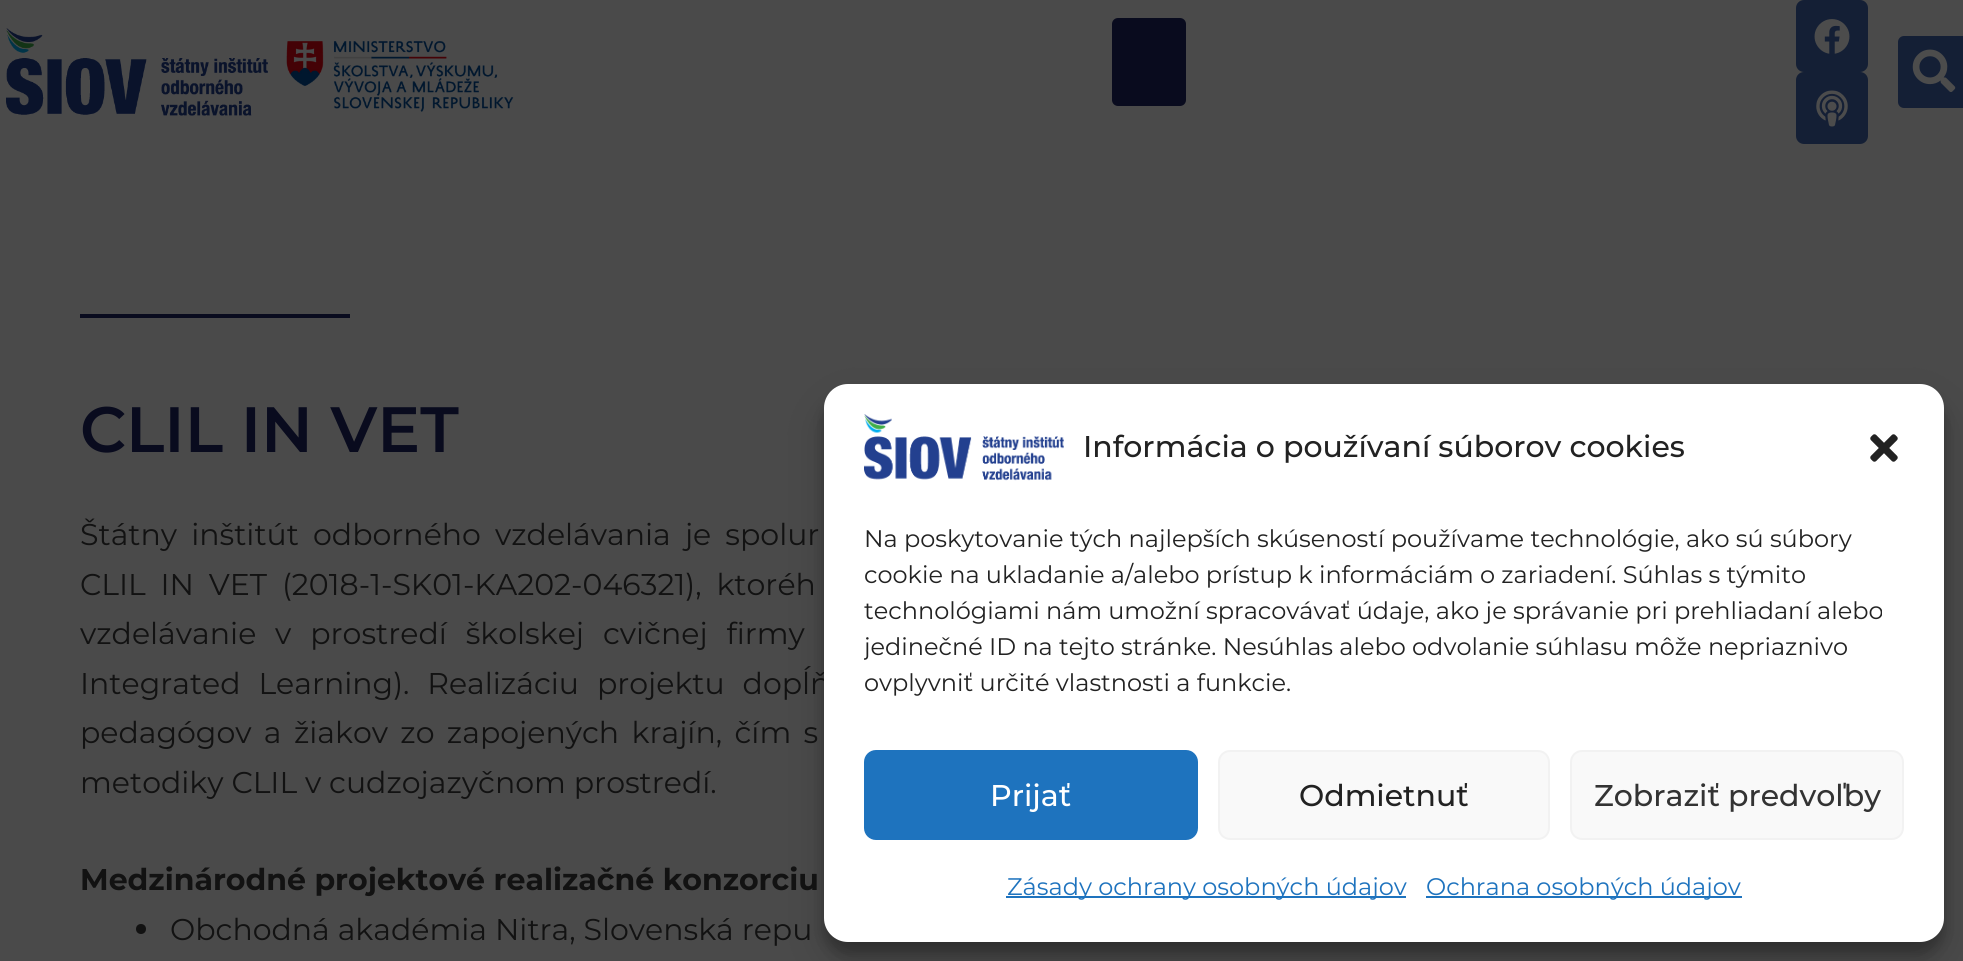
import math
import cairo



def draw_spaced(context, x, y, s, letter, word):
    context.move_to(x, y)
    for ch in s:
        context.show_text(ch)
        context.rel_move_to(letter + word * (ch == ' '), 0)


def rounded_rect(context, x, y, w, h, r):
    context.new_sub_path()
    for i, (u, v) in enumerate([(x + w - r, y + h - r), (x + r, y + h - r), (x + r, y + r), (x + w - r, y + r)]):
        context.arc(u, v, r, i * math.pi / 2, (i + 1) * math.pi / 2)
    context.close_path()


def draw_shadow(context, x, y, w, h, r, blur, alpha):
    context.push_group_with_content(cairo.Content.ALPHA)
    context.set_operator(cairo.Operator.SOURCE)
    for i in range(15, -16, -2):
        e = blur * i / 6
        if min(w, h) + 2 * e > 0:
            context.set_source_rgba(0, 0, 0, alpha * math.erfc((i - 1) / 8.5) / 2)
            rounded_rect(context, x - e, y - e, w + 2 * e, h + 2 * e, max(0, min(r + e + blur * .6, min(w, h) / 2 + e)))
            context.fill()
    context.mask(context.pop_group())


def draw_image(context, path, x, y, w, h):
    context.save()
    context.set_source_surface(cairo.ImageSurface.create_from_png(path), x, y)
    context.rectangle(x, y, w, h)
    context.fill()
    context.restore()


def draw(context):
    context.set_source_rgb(74 / 255, 74 / 255, 74 / 255)
    context.paint()
    draw_image(context, "images/1.png", 6, 28, 262, 88)
    draw_image(context, "images/2.png", 286, 41, 228, 71)
    context.set_source_rgb(9 / 255, 11 / 255, 30 / 255)
    rounded_rect(context, 1112, 18, 74, 88, 6)
    context.fill()
    context.set_source_rgb(20 / 255, 31 / 255, 53 / 255)
    rounded_rect(context, 1796, 0, 72, 72, 8)
    context.fill()
    draw_image(context, "images/3.png", 1814, 19, 36, 35)
    rounded_rect(context, 1796, 72, 72, 72, 8)
    context.fill()
    draw_image(context, "images/4.png", 1816, 90, 32, 37)
    rounded_rect(context, 1898, 36, 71, 72, 6)
    context.fill()
    draw_image(context, "images/5.png", 1912, 49, 44, 43)
    context.set_source_rgb(9 / 255, 11 / 255, 30 / 255)
    context.rectangle(80, 314, 270, 4)
    context.fill()
    context.set_source_rgb(18 / 255, 18 / 255, 18 / 255)
    context.arc(141, 929, 5, 0, 2 * math.pi)
    context.fill()
    context.set_source_rgb(0, 0, 0)
    draw_shadow(context, 824, 396, 1120, 558, 24, 6, 0.23)
    draw_shadow(context, 824, 404, 1120, 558, 24, 20, 0.19)
    context.select_font_face("Montserrat SemiBold")
    context.set_font_size(64)
    context.set_source_rgb(9 / 255, 11 / 255, 30 / 255)
    context.move_to(80, 452)
    context.show_text("CLIL IN VET")
    context.select_font_face("Montserrat")
    context.set_font_size(30)
    context.set_source_rgb(18 / 255, 18 / 255, 18 / 255)
    draw_spaced(context, 80, 545, "Štátny inštitút odborného vzdelávania je spolur", 0, 6.25)
    draw_spaced(context, 80, 595, "CLIL IN VET (2018-1-SK01-KA202-046321), ktoréh", 0, 7)
    draw_spaced(context, 80, 644, "vzdelávanie v prostredí školskej cvičnej firmy", 0, 11)
    draw_spaced(context, 80, 694, "Integrated Learning). Realizáciu projektu dopĺň", 0, 10)
    draw_spaced(context, 80, 743, "pedagógov a žiakov zo zapojených krajín, čím s", 0, 4.5)
    context.move_to(80, 793)
    context.show_text("metodiky CLIL v cudzojazyčnom prostredí.")
    context.select_font_face("Montserrat", cairo.FontSlant.NORMAL, cairo.FontWeight.BOLD)
    context.move_to(80, 890)
    context.show_text("Medzinárodné projektové realizačné konzorciu")
    context.select_font_face("Montserrat")
    context.move_to(170, 940)
    context.show_text("Obchodná akadémia Nitra, Slovenská repu")
    context.set_source_rgb(1, 1, 1)
    rounded_rect(context, 824, 384, 1120, 558, 24)
    context.fill()
    draw_image(context, "images/6.png", 864, 414, 200, 67)
    context.select_font_face("Montserrat Medium")
    context.set_source_rgb(34 / 255, 34 / 255, 34 / 255)
    context.move_to(1083, 457)
    context.show_text("Informácia o používaní súborov cookies")
    draw_image(context, "images/7.png", 1870, 434, 28, 28)
    context.select_font_face("Montserrat")
    context.set_font_size(24)
    context.move_to(864, 547)
    context.show_text("Na poskytovanie tých najlepších skúseností používame technológie, ako sú súbory")
    context.move_to(864, 583)
    context.show_text("cookie na ukladanie a/alebo prístup k informáciám o zariadení. Súhlas s týmito")
    context.move_to(864, 619)
    context.show_text("technológiami nám umožní spracovávať údaje, ako je správanie pri prehliadaní alebo")
    context.save()
    context.rectangle(864, 520, 1040, 190)
    context.clip()
    context.move_to(864, 655)
    context.show_text("jedinečné ID na tejto stránke. Nesúhlas alebo odvolanie súhlasu môže nepriaznivo")
    context.restore()
    context.move_to(864, 691)
    context.show_text("ovplyvniť určité vlastnosti a funkcie.")
    context.set_source_rgb(30 / 255, 115 / 255, 190 / 255)
    rounded_rect(context, 865, 751, 332, 88, 11)
    context.fill_preserve()
    context.stroke()
    context.select_font_face("Montserrat Medium")
    context.set_font_size(30)
    context.set_source_rgb(1, 1, 1)
    context.move_to(990, 806)
    context.show_text("Prijať")
    context.set_source_rgb(249 / 255, 249 / 255, 249 / 255)
    rounded_rect(context, 1219, 751, 330, 88, 11)
    context.fill_preserve()
    context.set_source_rgb(242 / 255, 242 / 255, 242 / 255)
    context.stroke()
    context.set_source_rgb(34 / 255, 34 / 255, 34 / 255)
    context.move_to(1299, 806)
    context.show_text("Odmietnuť")
    context.set_source_rgb(249 / 255, 249 / 255, 249 / 255)
    rounded_rect(context, 1571, 751, 332, 88, 11)
    context.fill_preserve()
    context.set_source_rgb(242 / 255, 242 / 255, 242 / 255)
    context.stroke()
    context.set_source_rgb(51 / 255, 51 / 255, 51 / 255)
    context.move_to(1594, 806)
    context.show_text("Zobraziť predvoľby")
    context.set_source_rgb(30 / 255, 115 / 255, 190 / 255)
    context.rectangle(1006, 896, 400, 2)
    context.fill()
    context.select_font_face("Montserrat")
    context.set_font_size(24)
    context.move_to(1007, 895)
    context.show_text("Zásady ochrany osobných údajov")
    context.rectangle(1426, 896, 316, 2)
    context.fill()
    context.move_to(1426, 895)
    context.show_text("Ochrana osobných údajov")


surface = cairo.ImageSurface(cairo.Format.RGB24, 1963, 961)
context = cairo.Context(surface)
options = cairo.FontOptions()
options.set_hint_metrics(cairo.HintMetrics.OFF)
options.set_hint_style(cairo.HintStyle.NONE)
context.set_font_options(options)
context.set_miter_limit(4)
draw(context)
surface.write_to_png("out.png")
